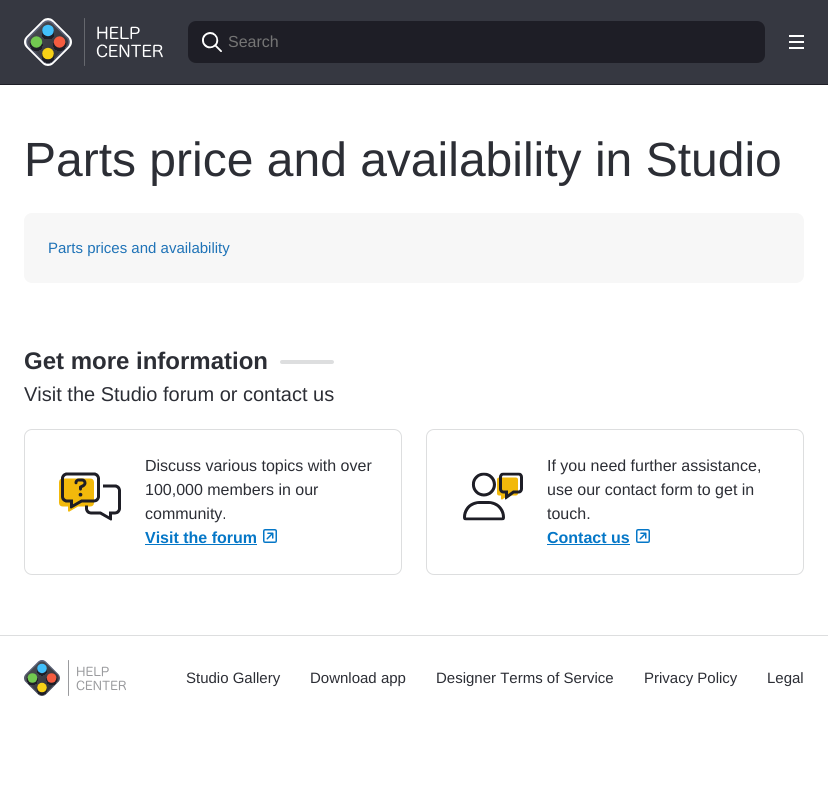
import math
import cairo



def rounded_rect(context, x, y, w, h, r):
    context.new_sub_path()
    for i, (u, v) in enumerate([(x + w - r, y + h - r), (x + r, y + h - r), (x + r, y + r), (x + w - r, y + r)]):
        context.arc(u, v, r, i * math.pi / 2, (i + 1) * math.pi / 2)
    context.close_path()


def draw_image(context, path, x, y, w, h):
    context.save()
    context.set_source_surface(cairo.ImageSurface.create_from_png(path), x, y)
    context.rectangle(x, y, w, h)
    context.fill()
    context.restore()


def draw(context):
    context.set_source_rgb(1, 1, 1)
    context.paint()
    context.set_source_rgb(54 / 255, 56 / 255, 65 / 255)
    context.rectangle(0, 0, 828, 84)
    context.fill()
    context.set_source_rgb(30 / 255, 30 / 255, 38 / 255)
    context.rectangle(0, 84, 828, 1)
    context.fill()
    draw_image(context, "images/1.png", 24, 18, 139, 48)
    rounded_rect(context, 188, 21, 577, 42, 8)
    context.fill()
    draw_image(context, "images/2.png", 202, 32, 20, 20)
    context.set_source_rgb(1, 1, 1)
    context.rectangle(789, 35, 15, 2)
    context.fill()
    context.rectangle(789, 41, 15, 2)
    context.fill()
    context.rectangle(789, 47, 15, 2)
    context.fill()
    context.set_source_rgb(247 / 255, 247 / 255, 247 / 255)
    rounded_rect(context, 24, 213, 780, 70, 8)
    context.fill()
    context.set_source_rgb(221 / 255, 222 / 255, 223 / 255)
    rounded_rect(context, 280, 360, 54, 4, 2)
    context.fill()
    rounded_rect(context, 24.5, 429.5, 377, 145, 7.5)
    context.set_line_width(1)
    context.stroke()
    draw_image(context, "images/3.png", 59, 472, 62, 49)
    context.set_source_rgb(5 / 255, 119 / 255, 199 / 255)
    context.rectangle(145, 544, 112, 1)
    context.fill()
    draw_image(context, "images/4.png", 263, 529, 14, 14)
    rounded_rect(context, 426.5, 429.5, 377, 145, 7.5)
    context.set_source_rgb(221 / 255, 222 / 255, 223 / 255)
    context.stroke()
    draw_image(context, "images/5.png", 463, 472, 60, 49)
    context.set_source_rgb(5 / 255, 119 / 255, 199 / 255)
    context.rectangle(547, 544, 83, 1)
    context.fill()
    draw_image(context, "images/4.png", 636, 529, 14, 14)
    context.set_source_rgb(221 / 255, 222 / 255, 223 / 255)
    context.rectangle(0, 635, 828, 1)
    context.fill()
    draw_image(context, "images/6.png", 24, 660, 102, 36)
    context.select_font_face("Liberation Sans")
    context.set_font_size(16)
    context.set_source_rgb(117 / 255, 117 / 255, 117 / 255)
    context.move_to(228, 47)
    context.show_text("Search")
    context.set_font_size(48)
    context.set_source_rgb(44 / 255, 46 / 255, 53 / 255)
    context.move_to(24, 176)
    context.show_text("Parts price and availability in Studio")
    context.set_font_size(15)
    context.set_source_rgb(31 / 255, 115 / 255, 183 / 255)
    context.move_to(48, 253)
    context.show_text("Parts prices and availability")
    context.select_font_face("Liberation Sans", cairo.FontSlant.NORMAL, cairo.FontWeight.BOLD)
    context.set_font_size(24)
    context.set_source_rgb(44 / 255, 46 / 255, 53 / 255)
    context.move_to(24, 369)
    context.show_text("Get more information")
    context.select_font_face("Liberation Sans")
    context.set_font_size(20)
    context.move_to(24, 401)
    context.show_text("Visit the Studio forum or contact us")
    context.set_font_size(16)
    context.move_to(145, 471)
    context.show_text("Discuss various topics with over")
    context.move_to(145, 495)
    context.show_text("100,000 members in our")
    context.move_to(145, 519)
    context.show_text("community.")
    context.select_font_face("Liberation Sans", cairo.FontSlant.NORMAL, cairo.FontWeight.BOLD)
    context.set_source_rgb(5 / 255, 119 / 255, 199 / 255)
    context.move_to(145, 543)
    context.show_text("Visit the forum")
    context.select_font_face("Liberation Sans")
    context.set_source_rgb(44 / 255, 46 / 255, 53 / 255)
    context.move_to(547, 471)
    context.show_text("If you need further assistance,")
    context.move_to(547, 495)
    context.show_text("use our contact form to get in")
    context.move_to(547, 519)
    context.show_text("touch.")
    context.select_font_face("Liberation Sans", cairo.FontSlant.NORMAL, cairo.FontWeight.BOLD)
    context.set_source_rgb(5 / 255, 119 / 255, 199 / 255)
    context.move_to(547, 543)
    context.show_text("Contact us")
    context.select_font_face("Liberation Sans")
    context.set_font_size(15)
    context.set_source_rgb(44 / 255, 46 / 255, 53 / 255)
    context.move_to(186, 683)
    context.show_text("Studio Gallery")
    context.move_to(310, 683)
    context.show_text("Download app")
    context.move_to(436, 683)
    context.show_text("Designer Terms of Service")
    context.move_to(644, 683)
    context.show_text("Privacy Policy")
    context.move_to(767, 683)
    context.show_text("Legal")


surface = cairo.ImageSurface(cairo.Format.RGB24, 828, 811)
context = cairo.Context(surface)
options = cairo.FontOptions()
options.set_hint_metrics(cairo.HintMetrics.OFF)
options.set_hint_style(cairo.HintStyle.NONE)
context.set_font_options(options)
context.set_miter_limit(4)
draw(context)
surface.write_to_png("out.png")
